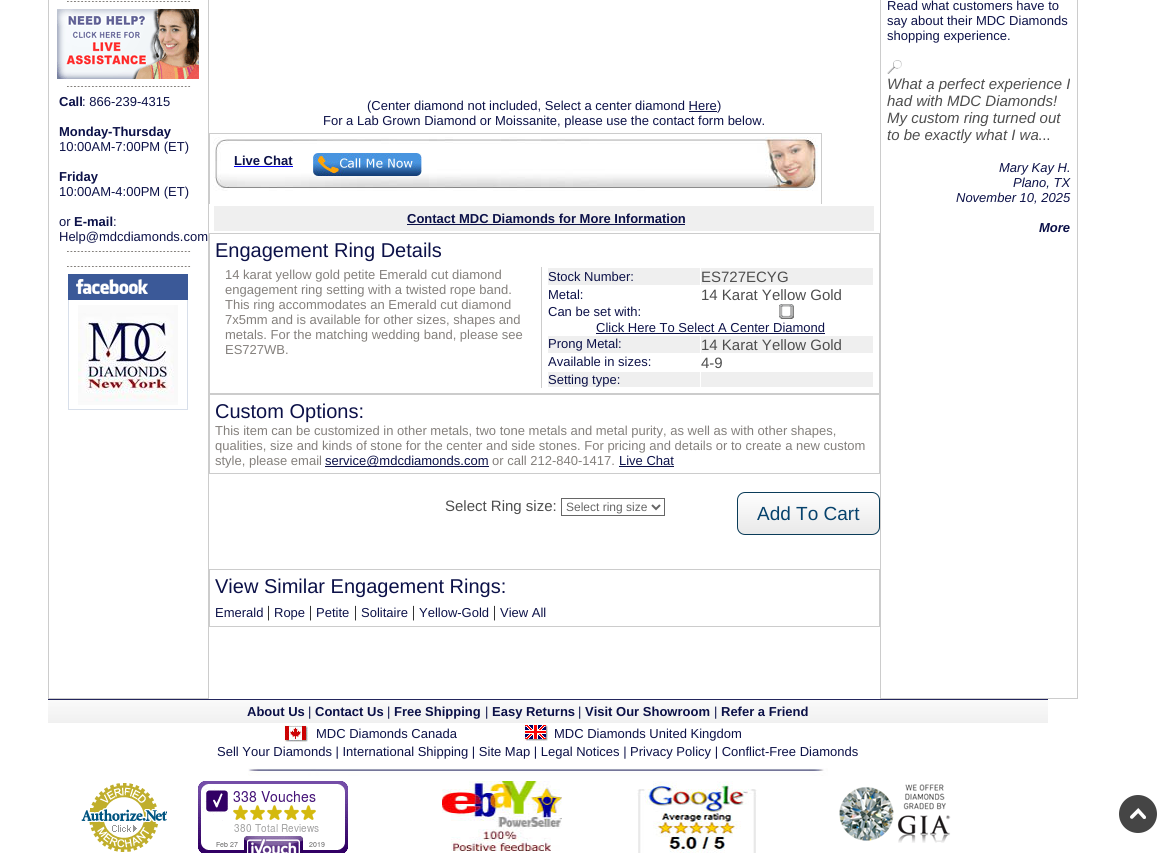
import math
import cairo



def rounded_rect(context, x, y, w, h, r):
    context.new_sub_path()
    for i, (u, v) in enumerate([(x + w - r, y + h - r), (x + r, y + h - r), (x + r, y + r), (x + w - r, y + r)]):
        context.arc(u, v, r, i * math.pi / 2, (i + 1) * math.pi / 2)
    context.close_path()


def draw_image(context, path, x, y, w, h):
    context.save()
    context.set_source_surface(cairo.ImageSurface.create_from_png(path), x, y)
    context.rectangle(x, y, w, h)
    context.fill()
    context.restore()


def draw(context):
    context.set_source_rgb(1, 1, 1)
    context.paint()
    context.set_source_rgb(204 / 255, 204 / 255, 204 / 255)
    context.rectangle(208, 0, 1, 699)
    context.fill()
    context.rectangle(48, 698, 161, 1)
    context.fill()
    context.rectangle(48, 0, 1, 699)
    context.fill()
    draw_image(context, "images/1.png", 67, 1, 124, 1)
    draw_image(context, "images/2.png", 57, 9, 142, 70)
    draw_image(context, "images/1.png", 67, 86, 124, 1)
    draw_image(context, "images/1.png", 67, 251, 124, 1)
    draw_image(context, "images/1.png", 67, 266, 124, 1)
    draw_image(context, "images/3.png", 68, 274, 120, 136)
    context.set_source_rgb(12 / 255, 17 / 255, 72 / 255)
    context.rectangle(689, 111, 28, 1)
    context.fill()
    context.set_source_rgb(204 / 255, 204 / 255, 204 / 255)
    context.rectangle(209, 133, 613, 1)
    context.fill()
    context.rectangle(821, 133, 1, 71)
    context.fill()
    context.rectangle(209, 133, 1, 71)
    context.fill()
    draw_image(context, "images/4.png", 213, 137, 605, 54)
    context.set_source_rgb(0, 0, 238 / 255)
    context.rectangle(234, 166, 59, 1)
    context.fill()
    draw_image(context, "images/5.png", 313, 153, 109, 23)
    context.set_source_rgb(239 / 255, 239 / 255, 239 / 255)
    context.rectangle(214, 206, 660, 25)
    context.fill()
    context.set_source_rgb(12 / 255, 17 / 255, 72 / 255)
    context.rectangle(407, 224, 278, 1)
    context.fill()
    context.rectangle(209.5, 233.5, 670, 160)
    context.set_source_rgb(204 / 255, 204 / 255, 204 / 255)
    context.set_line_width(1)
    context.stroke()
    context.rectangle(541, 267, 1, 121)
    context.fill()
    context.set_source_rgb(239 / 255, 239 / 255, 239 / 255)
    context.rectangle(548, 268, 152, 17)
    context.fill()
    context.rectangle(701, 268, 172, 17)
    context.fill()
    draw_image(context, "images/6.png", 779, 304, 15, 15)
    context.set_source_rgb(12 / 255, 17 / 255, 72 / 255)
    context.rectangle(596, 333, 229, 1)
    context.fill()
    context.set_source_rgb(239 / 255, 239 / 255, 239 / 255)
    context.rectangle(548, 336, 152, 17)
    context.fill()
    context.rectangle(701, 336, 172, 17)
    context.fill()
    context.rectangle(548, 372, 152, 15)
    context.fill()
    context.rectangle(701, 372, 172, 15)
    context.fill()
    context.rectangle(209.5, 394.5, 670, 79)
    context.set_source_rgb(204 / 255, 204 / 255, 204 / 255)
    context.stroke()
    context.set_source_rgb(12 / 255, 17 / 255, 72 / 255)
    context.rectangle(325, 466, 164, 1)
    context.fill()
    context.rectangle(619, 466, 55, 1)
    context.fill()
    context.rectangle(561.5, 498.5, 103, 17)
    context.set_source_rgb(102 / 255, 102 / 255, 102 / 255)
    context.stroke()
    context.new_path()
    context.move_to(652, 505)
    context.line_to(656, 509)
    context.line_to(660, 505)
    context.set_line_width(2)
    context.stroke()
    context.save()
    rounded_rect(context, 737, 492, 143, 43, 8)
    context.clip()
    gradient = cairo.LinearGradient(809, 493, 809, 534)
    gradient.add_color_stop_rgba(0, 254 / 255, 254 / 255, 254 / 255, 1)
    gradient.add_color_stop_rgba(1, 233 / 255, 233 / 255, 233 / 255, 1)
    context.set_source(gradient)
    context.rectangle(737, 493, 143, 41)
    context.fill()
    context.restore()
    rounded_rect(context, 737.5, 492.5, 142, 42, 7.5)
    context.set_source_rgb(10 / 255, 60 / 255, 89 / 255)
    context.set_line_width(1)
    context.stroke()
    context.rectangle(209.5, 569.5, 670, 57)
    context.set_source_rgb(204 / 255, 204 / 255, 204 / 255)
    context.stroke()
    context.rectangle(880.5, -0.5, 197, 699)
    context.stroke()
    draw_image(context, "images/7.png", 887, 60, 15, 14)
    draw_image(context, "images/8.png", 48, 699, 1000, 24)
    draw_image(context, "images/9.png", 284, 725, 24, 17)
    draw_image(context, "images/10.png", 523, 725, 25, 16)
    draw_image(context, "images/11.png", 248, 768, 580, 8)
    draw_image(context, "images/12.png", 81, 783, 86, 69)
    draw_image(context, "images/13.png", 198, 781, 150, 72)
    draw_image(context, "images/14.png", 442, 781, 120, 70)
    draw_image(context, "images/15.png", 637, 781, 120, 72)
    draw_image(context, "images/16.png", 839, 784, 112, 59)
    draw_image(context, "images/17.png", 1119, 795, 38, 38)
    context.select_font_face("Liberation Sans", cairo.FontSlant.NORMAL, cairo.FontWeight.BOLD)
    context.set_font_size(13)
    context.set_source_rgb(12 / 255, 17 / 255, 72 / 255)
    context.move_to(59, 106)
    context.show_text("Call")
    context.select_font_face("Liberation Sans")
    context.move_to(82, 106)
    context.show_text(": 866-239-4315")
    context.select_font_face("Liberation Sans", cairo.FontSlant.NORMAL, cairo.FontWeight.BOLD)
    context.move_to(59, 136)
    context.show_text("Monday-Thursday")
    context.select_font_face("Liberation Sans")
    context.move_to(59, 151)
    context.show_text("10:00AM-7:00PM (ET)")
    context.select_font_face("Liberation Sans", cairo.FontSlant.NORMAL, cairo.FontWeight.BOLD)
    context.move_to(59, 181)
    context.show_text("Friday")
    context.select_font_face("Liberation Sans")
    context.move_to(59, 196)
    context.show_text("10:00AM-4:00PM (ET)")
    context.move_to(59, 226)
    context.show_text("or")
    context.select_font_face("Liberation Sans", cairo.FontSlant.NORMAL, cairo.FontWeight.BOLD)
    context.move_to(74, 226)
    context.show_text("E-mail")
    context.select_font_face("Liberation Sans")
    context.move_to(113, 226)
    context.show_text(":")
    context.move_to(59, 241)
    context.show_text("Help@mdcdiamonds.com")
    context.move_to(367, 110)
    context.show_text("(Center diamond not included, Select a center diamond Here")
    context.move_to(717, 110)
    context.show_text(")")
    context.move_to(323, 125)
    context.show_text("For a Lab Grown Diamond or Moissanite, please use the contact form below.")
    context.select_font_face("Liberation Sans", cairo.FontSlant.NORMAL, cairo.FontWeight.BOLD)
    context.move_to(234, 165)
    context.show_text("Live Chat")
    context.move_to(407, 223)
    context.show_text("Contact MDC Diamonds for More Information")
    context.select_font_face("Liberation Sans")
    context.set_font_size(20)
    context.move_to(215, 257)
    context.show_text("Engagement Ring Details")
    context.set_font_size(13)
    context.set_source_rgb(132 / 255, 128 / 255, 124 / 255)
    context.move_to(225, 279)
    context.show_text("14 karat yellow gold petite Emerald cut diamond")
    context.move_to(225, 294)
    context.show_text("engagement ring setting with a twisted rope band.")
    context.move_to(225, 309)
    context.show_text("This ring accommodates an Emerald cut diamond")
    context.move_to(225, 324)
    context.show_text("7x5mm and is available for other sizes, shapes and")
    context.move_to(225, 339)
    context.show_text("metals. For the matching wedding band, please see")
    context.move_to(225, 354)
    context.show_text("ES727WB.")
    context.set_source_rgb(12 / 255, 17 / 255, 72 / 255)
    context.move_to(548, 281)
    context.show_text("Stock Number:")
    context.set_font_size(15)
    context.set_source_rgb(78 / 255, 78 / 255, 78 / 255)
    context.move_to(701, 282)
    context.show_text("ES727ECYG")
    context.set_font_size(13)
    context.set_source_rgb(12 / 255, 17 / 255, 72 / 255)
    context.move_to(548, 299)
    context.show_text("Metal:")
    context.set_font_size(15)
    context.set_source_rgb(78 / 255, 78 / 255, 78 / 255)
    context.move_to(701, 300)
    context.show_text("14 Karat Yellow Gold")
    context.set_font_size(13)
    context.set_source_rgb(12 / 255, 17 / 255, 72 / 255)
    context.move_to(548, 316)
    context.show_text("Can be set with:")
    context.move_to(596, 332)
    context.show_text("Click Here To Select A Center Diamond")
    context.move_to(548, 348)
    context.show_text("Prong Metal:")
    context.set_font_size(15)
    context.set_source_rgb(78 / 255, 78 / 255, 78 / 255)
    context.move_to(701, 350)
    context.show_text("14 Karat Yellow Gold")
    context.set_font_size(13)
    context.set_source_rgb(12 / 255, 17 / 255, 72 / 255)
    context.move_to(548, 366)
    context.show_text("Available in sizes:")
    context.set_font_size(15)
    context.set_source_rgb(78 / 255, 78 / 255, 78 / 255)
    context.move_to(701, 368)
    context.show_text("4-9")
    context.set_font_size(13)
    context.set_source_rgb(12 / 255, 17 / 255, 72 / 255)
    context.move_to(548, 384)
    context.show_text("Setting type:")
    context.set_font_size(20)
    context.move_to(215, 418)
    context.show_text("Custom Options:")
    context.set_font_size(13)
    context.set_source_rgb(132 / 255, 128 / 255, 124 / 255)
    context.move_to(215, 435)
    context.show_text("This item can be customized in other metals, two tone metals and metal purity, as well as with other shapes,")
    context.move_to(215, 450)
    context.show_text("qualities, size and kinds of stone for the center and side stones. For pricing and details or to create a new custom")
    context.move_to(215, 465)
    context.show_text("style, please email")
    context.set_source_rgb(12 / 255, 17 / 255, 72 / 255)
    context.move_to(325, 465)
    context.show_text("service@mdcdiamonds.com")
    context.set_source_rgb(132 / 255, 128 / 255, 124 / 255)
    context.move_to(492, 465)
    context.show_text("or call 212-840-1417.")
    context.set_source_rgb(12 / 255, 17 / 255, 72 / 255)
    context.move_to(619, 465)
    context.show_text("Live Chat")
    context.set_font_size(15)
    context.set_source_rgb(78 / 255, 78 / 255, 78 / 255)
    context.move_to(445, 511)
    context.show_text("Select Ring size:")
    context.set_font_size(12)
    context.set_source_rgb(102 / 255, 102 / 255, 102 / 255)
    context.move_to(566, 511)
    context.show_text("Select ring size")
    context.set_font_size(19)
    context.set_source_rgb(6 / 255, 66 / 255, 108 / 255)
    context.move_to(757, 520)
    context.show_text("Add To Cart")
    context.set_font_size(20)
    context.set_source_rgb(12 / 255, 17 / 255, 72 / 255)
    context.move_to(215, 593)
    context.show_text("View Similar Engagement Rings:")
    context.set_font_size(13)
    context.move_to(215, 617)
    context.show_text("Emerald")
    context.select_font_face("Liberation Serif")
    context.set_font_size(16)
    context.set_source_rgb(0, 0, 0)
    context.move_to(267, 617)
    context.show_text("|")
    context.select_font_face("Liberation Sans")
    context.set_font_size(13)
    context.set_source_rgb(12 / 255, 17 / 255, 72 / 255)
    context.move_to(274, 617)
    context.show_text("Rope")
    context.select_font_face("Liberation Serif")
    context.set_font_size(16)
    context.set_source_rgb(0, 0, 0)
    context.move_to(309, 617)
    context.show_text("|")
    context.select_font_face("Liberation Sans")
    context.set_font_size(13)
    context.set_source_rgb(12 / 255, 17 / 255, 72 / 255)
    context.move_to(316, 617)
    context.show_text("Petite")
    context.select_font_face("Liberation Serif")
    context.set_font_size(16)
    context.set_source_rgb(0, 0, 0)
    context.move_to(354, 617)
    context.show_text("|")
    context.select_font_face("Liberation Sans")
    context.set_font_size(13)
    context.set_source_rgb(12 / 255, 17 / 255, 72 / 255)
    context.move_to(361, 617)
    context.show_text("Solitaire")
    context.select_font_face("Liberation Serif")
    context.set_font_size(16)
    context.set_source_rgb(0, 0, 0)
    context.move_to(412, 617)
    context.show_text("|")
    context.select_font_face("Liberation Sans")
    context.set_font_size(13)
    context.set_source_rgb(12 / 255, 17 / 255, 72 / 255)
    context.move_to(419, 617)
    context.show_text("Yellow-Gold")
    context.select_font_face("Liberation Serif")
    context.set_font_size(16)
    context.set_source_rgb(0, 0, 0)
    context.move_to(493, 617)
    context.show_text("|")
    context.select_font_face("Liberation Sans")
    context.set_font_size(13)
    context.set_source_rgb(12 / 255, 17 / 255, 72 / 255)
    context.move_to(500, 617)
    context.show_text("View All")
    context.move_to(887, 10)
    context.show_text("Read what customers have to")
    context.move_to(887, 25)
    context.show_text("say about their MDC Diamonds")
    context.move_to(887, 40)
    context.show_text("shopping experience.")
    context.select_font_face("Liberation Sans", cairo.FontSlant.ITALIC)
    context.set_font_size(15)
    context.set_source_rgb(78 / 255, 78 / 255, 78 / 255)
    context.move_to(887, 89)
    context.show_text("What a perfect experience I")
    context.move_to(887, 106)
    context.show_text("had with MDC Diamonds!")
    context.move_to(887, 123)
    context.show_text("My custom ring turned out")
    context.move_to(887, 140)
    context.show_text("to be exactly what I wa")
    context.select_font_face("Liberation Sans")
    context.move_to(1038, 140)
    context.show_text("...")
    context.select_font_face("Liberation Sans", cairo.FontSlant.ITALIC)
    context.set_font_size(13)
    context.set_source_rgb(12 / 255, 17 / 255, 72 / 255)
    context.move_to(999, 172)
    context.show_text("Mary Kay H.")
    context.move_to(1013, 187)
    context.show_text("Plano, TX")
    context.move_to(956, 202)
    context.show_text("November 10, 2025")
    context.select_font_face("Liberation Sans", cairo.FontSlant.ITALIC, cairo.FontWeight.BOLD)
    context.move_to(1039, 232)
    context.show_text("More")
    context.select_font_face("Liberation Sans", cairo.FontSlant.NORMAL, cairo.FontWeight.BOLD)
    context.move_to(247, 716)
    context.show_text("About Us")
    context.select_font_face("Liberation Sans")
    context.move_to(308, 716)
    context.show_text("|")
    context.select_font_face("Liberation Sans", cairo.FontSlant.NORMAL, cairo.FontWeight.BOLD)
    context.move_to(315, 716)
    context.show_text("Contact Us")
    context.select_font_face("Liberation Sans")
    context.move_to(387, 716)
    context.show_text("|")
    context.select_font_face("Liberation Sans", cairo.FontSlant.NORMAL, cairo.FontWeight.BOLD)
    context.move_to(394, 716)
    context.show_text("Free Shipping")
    context.select_font_face("Liberation Sans")
    context.move_to(485, 716)
    context.show_text("|")
    context.select_font_face("Liberation Sans", cairo.FontSlant.NORMAL, cairo.FontWeight.BOLD)
    context.move_to(492, 716)
    context.show_text("Easy Returns")
    context.select_font_face("Liberation Sans")
    context.move_to(578, 716)
    context.show_text("|")
    context.select_font_face("Liberation Sans", cairo.FontSlant.NORMAL, cairo.FontWeight.BOLD)
    context.move_to(585, 716)
    context.show_text("Visit Our Showroom")
    context.select_font_face("Liberation Sans")
    context.move_to(714, 716)
    context.show_text("|")
    context.select_font_face("Liberation Sans", cairo.FontSlant.NORMAL, cairo.FontWeight.BOLD)
    context.move_to(721, 716)
    context.show_text("Refer a Friend")
    context.select_font_face("Liberation Sans")
    context.move_to(316, 738)
    context.show_text("MDC Diamonds Canada")
    context.move_to(554, 738)
    context.show_text("MDC Diamonds United Kingdom")
    context.move_to(217, 756)
    context.show_text("Sell Your Diamonds | International Shipping | Site Map | Legal Notices | Privacy Policy | Conflict-Free Diamonds")


surface = cairo.ImageSurface(cairo.Format.RGB24, 1167, 853)
context = cairo.Context(surface)
options = cairo.FontOptions()
options.set_hint_metrics(cairo.HintMetrics.OFF)
options.set_hint_style(cairo.HintStyle.NONE)
context.set_font_options(options)
context.set_miter_limit(4)
draw(context)
surface.write_to_png("out.png")
